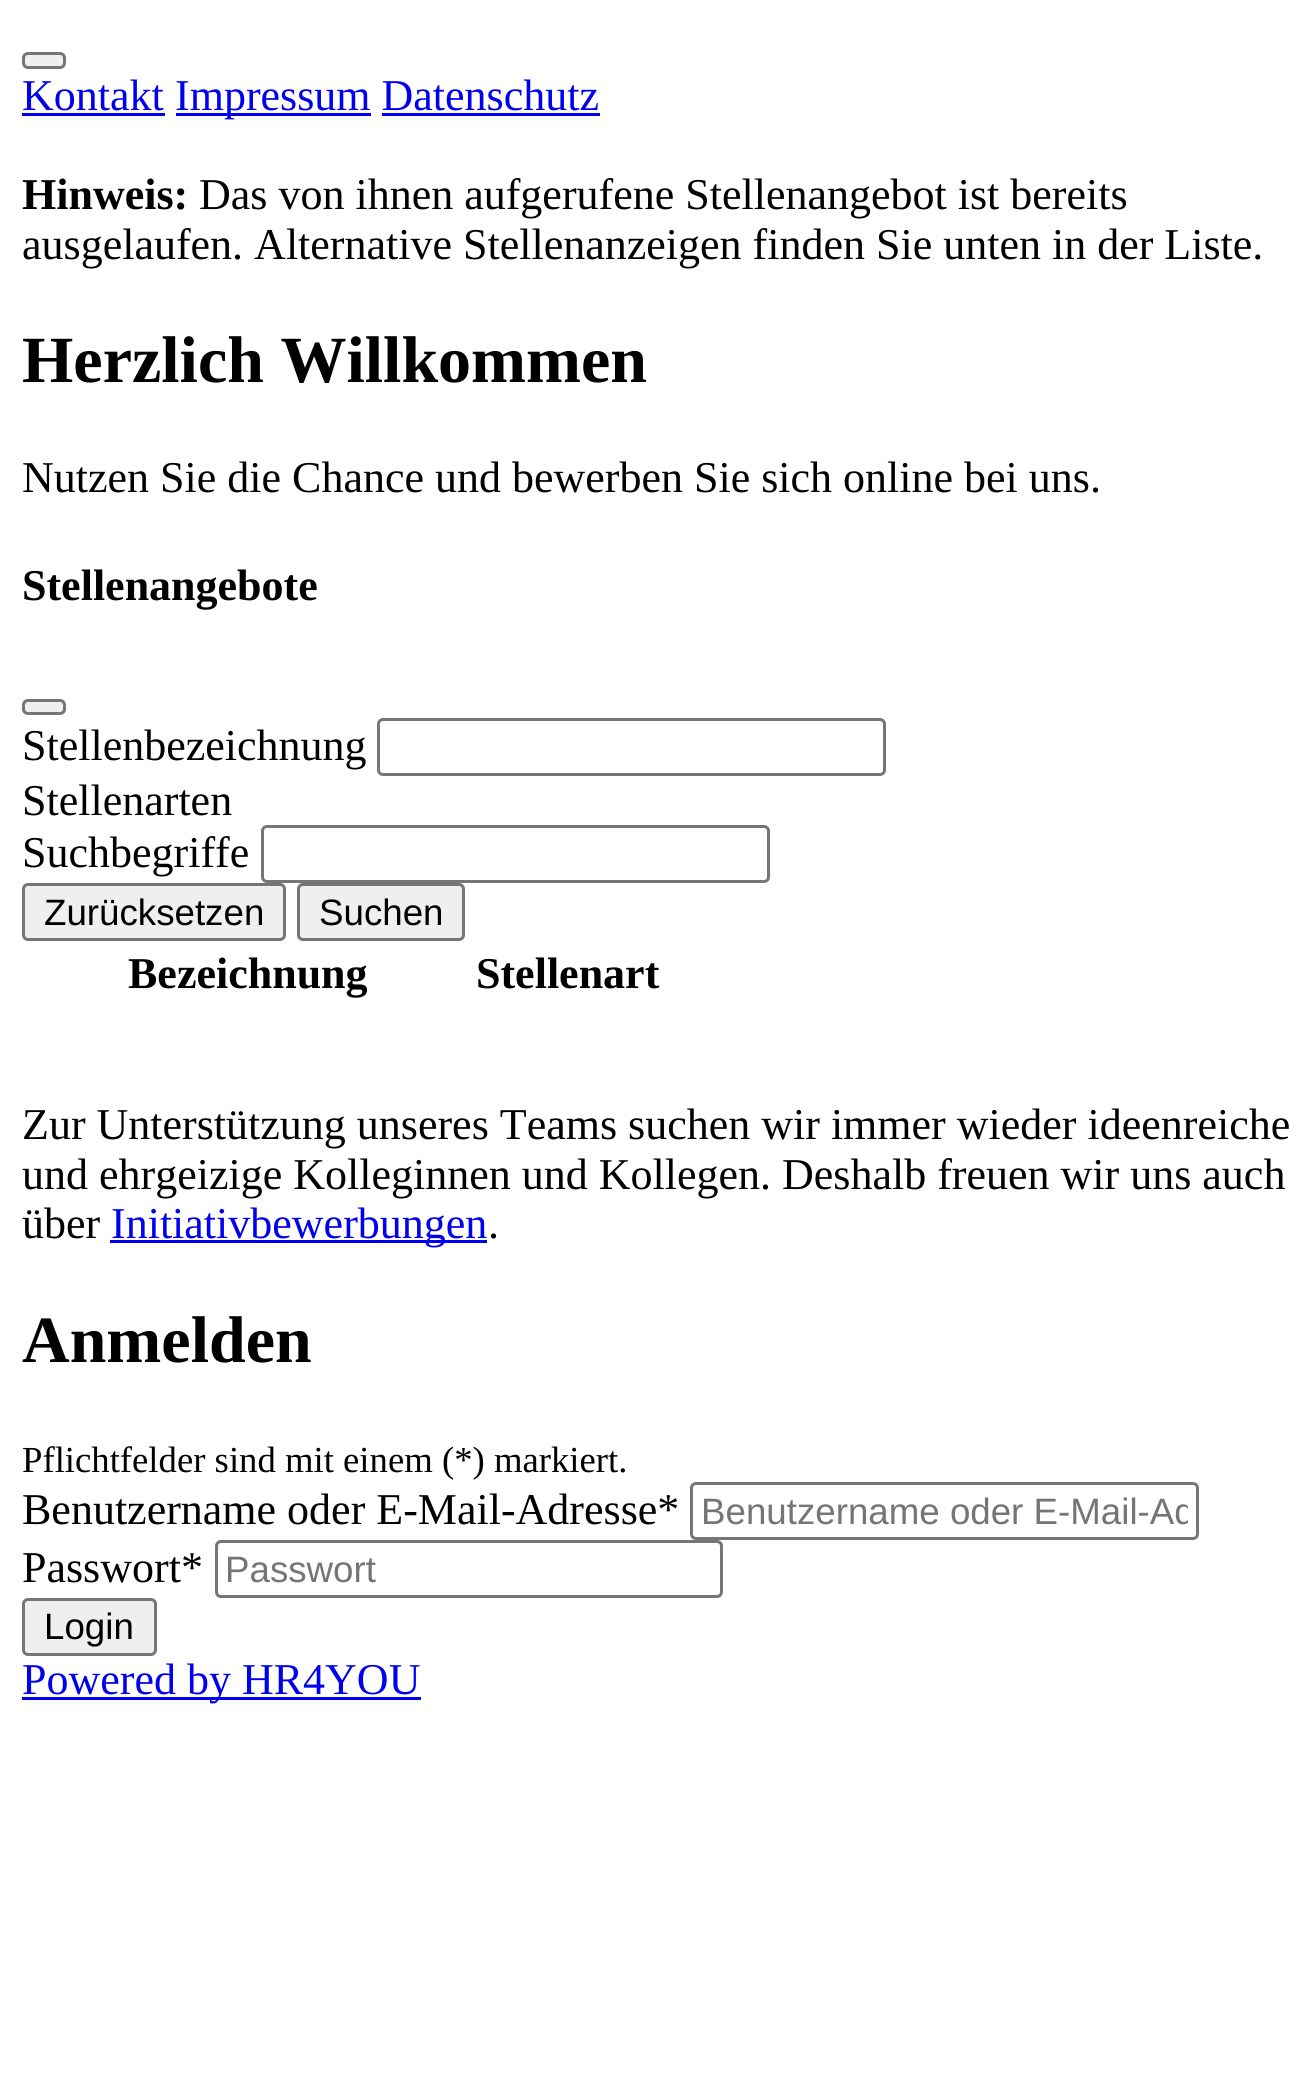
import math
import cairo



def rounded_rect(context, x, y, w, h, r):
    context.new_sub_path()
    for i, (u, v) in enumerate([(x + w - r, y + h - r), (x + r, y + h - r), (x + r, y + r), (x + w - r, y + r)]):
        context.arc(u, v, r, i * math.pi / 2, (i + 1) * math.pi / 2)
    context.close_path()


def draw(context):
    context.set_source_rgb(1, 1, 1)
    context.paint()
    context.set_source_rgb(239 / 255, 239 / 255, 239 / 255)
    rounded_rect(context, 23.5, 53.5, 41, 14, 4.5)
    context.fill_preserve()
    context.set_source_rgb(118 / 255, 118 / 255, 118 / 255)
    context.set_line_width(3)
    context.stroke()
    context.set_source_rgb(0, 0, 238 / 255)
    context.rectangle(22, 113, 143, 3)
    context.fill()
    context.rectangle(176, 113, 195, 3)
    context.fill()
    context.rectangle(382, 113, 218, 3)
    context.fill()
    context.set_source_rgb(239 / 255, 239 / 255, 239 / 255)
    rounded_rect(context, 23.5, 700.5, 41, 13, 4.5)
    context.fill_preserve()
    context.set_source_rgb(118 / 255, 118 / 255, 118 / 255)
    context.stroke()
    rounded_rect(context, 378.5, 719.5, 506, 55, 4.5)
    context.stroke()
    rounded_rect(context, 262.5, 826.5, 506, 55, 4.5)
    context.stroke()
    context.set_source_rgb(239 / 255, 239 / 255, 239 / 255)
    rounded_rect(context, 23.5, 884.5, 261, 55, 4.5)
    context.fill_preserve()
    context.set_source_rgb(118 / 255, 118 / 255, 118 / 255)
    context.stroke()
    context.set_source_rgb(239 / 255, 239 / 255, 239 / 255)
    rounded_rect(context, 298.5, 884.5, 165, 55, 4.5)
    context.fill_preserve()
    context.set_source_rgb(118 / 255, 118 / 255, 118 / 255)
    context.stroke()
    context.set_source_rgb(0, 0, 238 / 255)
    context.rectangle(110, 1240, 377, 3)
    context.fill()
    rounded_rect(context, 691.5, 1483.5, 506, 55, 4.5)
    context.set_source_rgb(118 / 255, 118 / 255, 118 / 255)
    context.stroke()
    rounded_rect(context, 216.5, 1541.5, 505, 55, 4.5)
    context.stroke()
    context.set_source_rgb(239 / 255, 239 / 255, 239 / 255)
    rounded_rect(context, 23.5, 1599.5, 132, 55, 4.5)
    context.fill_preserve()
    context.set_source_rgb(118 / 255, 118 / 255, 118 / 255)
    context.stroke()
    context.set_source_rgb(0, 0, 238 / 255)
    context.rectangle(22, 1697, 399, 3)
    context.fill()
    context.select_font_face("Liberation Serif")
    context.set_font_size(44)
    context.move_to(22, 110)
    context.show_text("Kontakt")
    context.move_to(175, 110)
    context.show_text("Impressum Datenschutz")
    context.select_font_face("Liberation Serif", cairo.FontSlant.NORMAL, cairo.FontWeight.BOLD)
    context.set_source_rgb(0, 0, 0)
    context.move_to(22, 209)
    context.show_text("Hinweis:")
    context.select_font_face("Liberation Serif")
    context.move_to(199, 209)
    context.show_text("Das von ihnen aufgerufene Stellenangebot ist bereits")
    context.move_to(22, 259)
    context.show_text("ausgelaufen. Alternative Stellenanzeigen finden Sie unten in der Liste.")
    context.select_font_face("Liberation Serif", cairo.FontSlant.NORMAL, cairo.FontWeight.BOLD)
    context.set_font_size(66)
    context.move_to(22, 382)
    context.show_text("Herzlich Willkommen")
    context.select_font_face("Liberation Serif")
    context.set_font_size(44)
    context.move_to(22, 492)
    context.show_text("Nutzen Sie die Chance und bewerben Sie sich online bei uns.")
    context.select_font_face("Liberation Serif", cairo.FontSlant.NORMAL, cairo.FontWeight.BOLD)
    context.move_to(22, 600)
    context.show_text("Stellenangebote")
    context.select_font_face("Liberation Serif")
    context.move_to(22, 760)
    context.show_text("Stellenbezeichnung")
    context.move_to(22, 815)
    context.show_text("Stellenarten")
    context.move_to(22, 867)
    context.show_text("Suchbegriffe")
    context.select_font_face("Liberation Sans")
    context.set_font_size(36.7)
    context.move_to(44, 925)
    context.show_text("Zurücksetzen")
    context.move_to(319, 925)
    context.show_text("Suchen")
    context.select_font_face("Liberation Serif", cairo.FontSlant.NORMAL, cairo.FontWeight.BOLD)
    context.set_font_size(44)
    context.move_to(128, 988)
    context.show_text("Bezeichnung")
    context.move_to(476, 988)
    context.show_text("Stellenart")
    context.select_font_face("Liberation Serif")
    context.move_to(22, 1139)
    context.show_text("Zur Unterstützung unseres Teams suchen wir immer wieder ideenreiche")
    context.move_to(22, 1189)
    context.show_text("und ehrgeizige Kolleginnen und Kollegen. Deshalb freuen wir uns auch")
    context.move_to(22, 1238)
    context.show_text("über")
    context.set_source_rgb(0, 0, 238 / 255)
    context.move_to(111, 1238)
    context.show_text("Initiativbewerbungen")
    context.set_source_rgb(0, 0, 0)
    context.move_to(488, 1238)
    context.show_text(".")
    context.select_font_face("Liberation Serif", cairo.FontSlant.NORMAL, cairo.FontWeight.BOLD)
    context.set_font_size(66)
    context.move_to(22, 1362)
    context.show_text("Anmelden")
    context.select_font_face("Liberation Serif")
    context.set_font_size(36.7)
    context.move_to(22, 1472)
    context.show_text("Pflichtfelder sind mit einem (*) markiert.")
    context.set_font_size(44)
    context.move_to(22, 1524)
    context.show_text("Benutzername oder E-Mail-Adresse*")
    context.save()
    context.rectangle(701, 1491, 487, 41)
    context.clip()
    context.select_font_face("Liberation Sans")
    context.set_font_size(36.7)
    context.set_source_rgb(117 / 255, 117 / 255, 117 / 255)
    context.move_to(701, 1524)
    context.show_text("Benutzername oder E-Mail-Ad")
    context.restore()
    context.move_to(22, 1582)
    context.show_text("Passwort*")
    context.select_font_face("Liberation Sans")
    context.set_font_size(36.7)
    context.set_source_rgb(117 / 255, 117 / 255, 117 / 255)
    context.move_to(225, 1582)
    context.show_text("Passwort")
    context.set_source_rgb(0, 0, 0)
    context.move_to(44, 1639)
    context.show_text("Login")
    context.select_font_face("Liberation Serif")
    context.set_font_size(44)
    context.set_source_rgb(0, 0, 238 / 255)
    context.move_to(22, 1694)
    context.show_text("Powered by HR4YOU")


surface = cairo.ImageSurface(cairo.Format.RGB24, 1315, 2075)
context = cairo.Context(surface)
options = cairo.FontOptions()
options.set_hint_metrics(cairo.HintMetrics.OFF)
options.set_hint_style(cairo.HintStyle.NONE)
context.set_font_options(options)
context.set_miter_limit(4)
draw(context)
surface.write_to_png("out.png")
